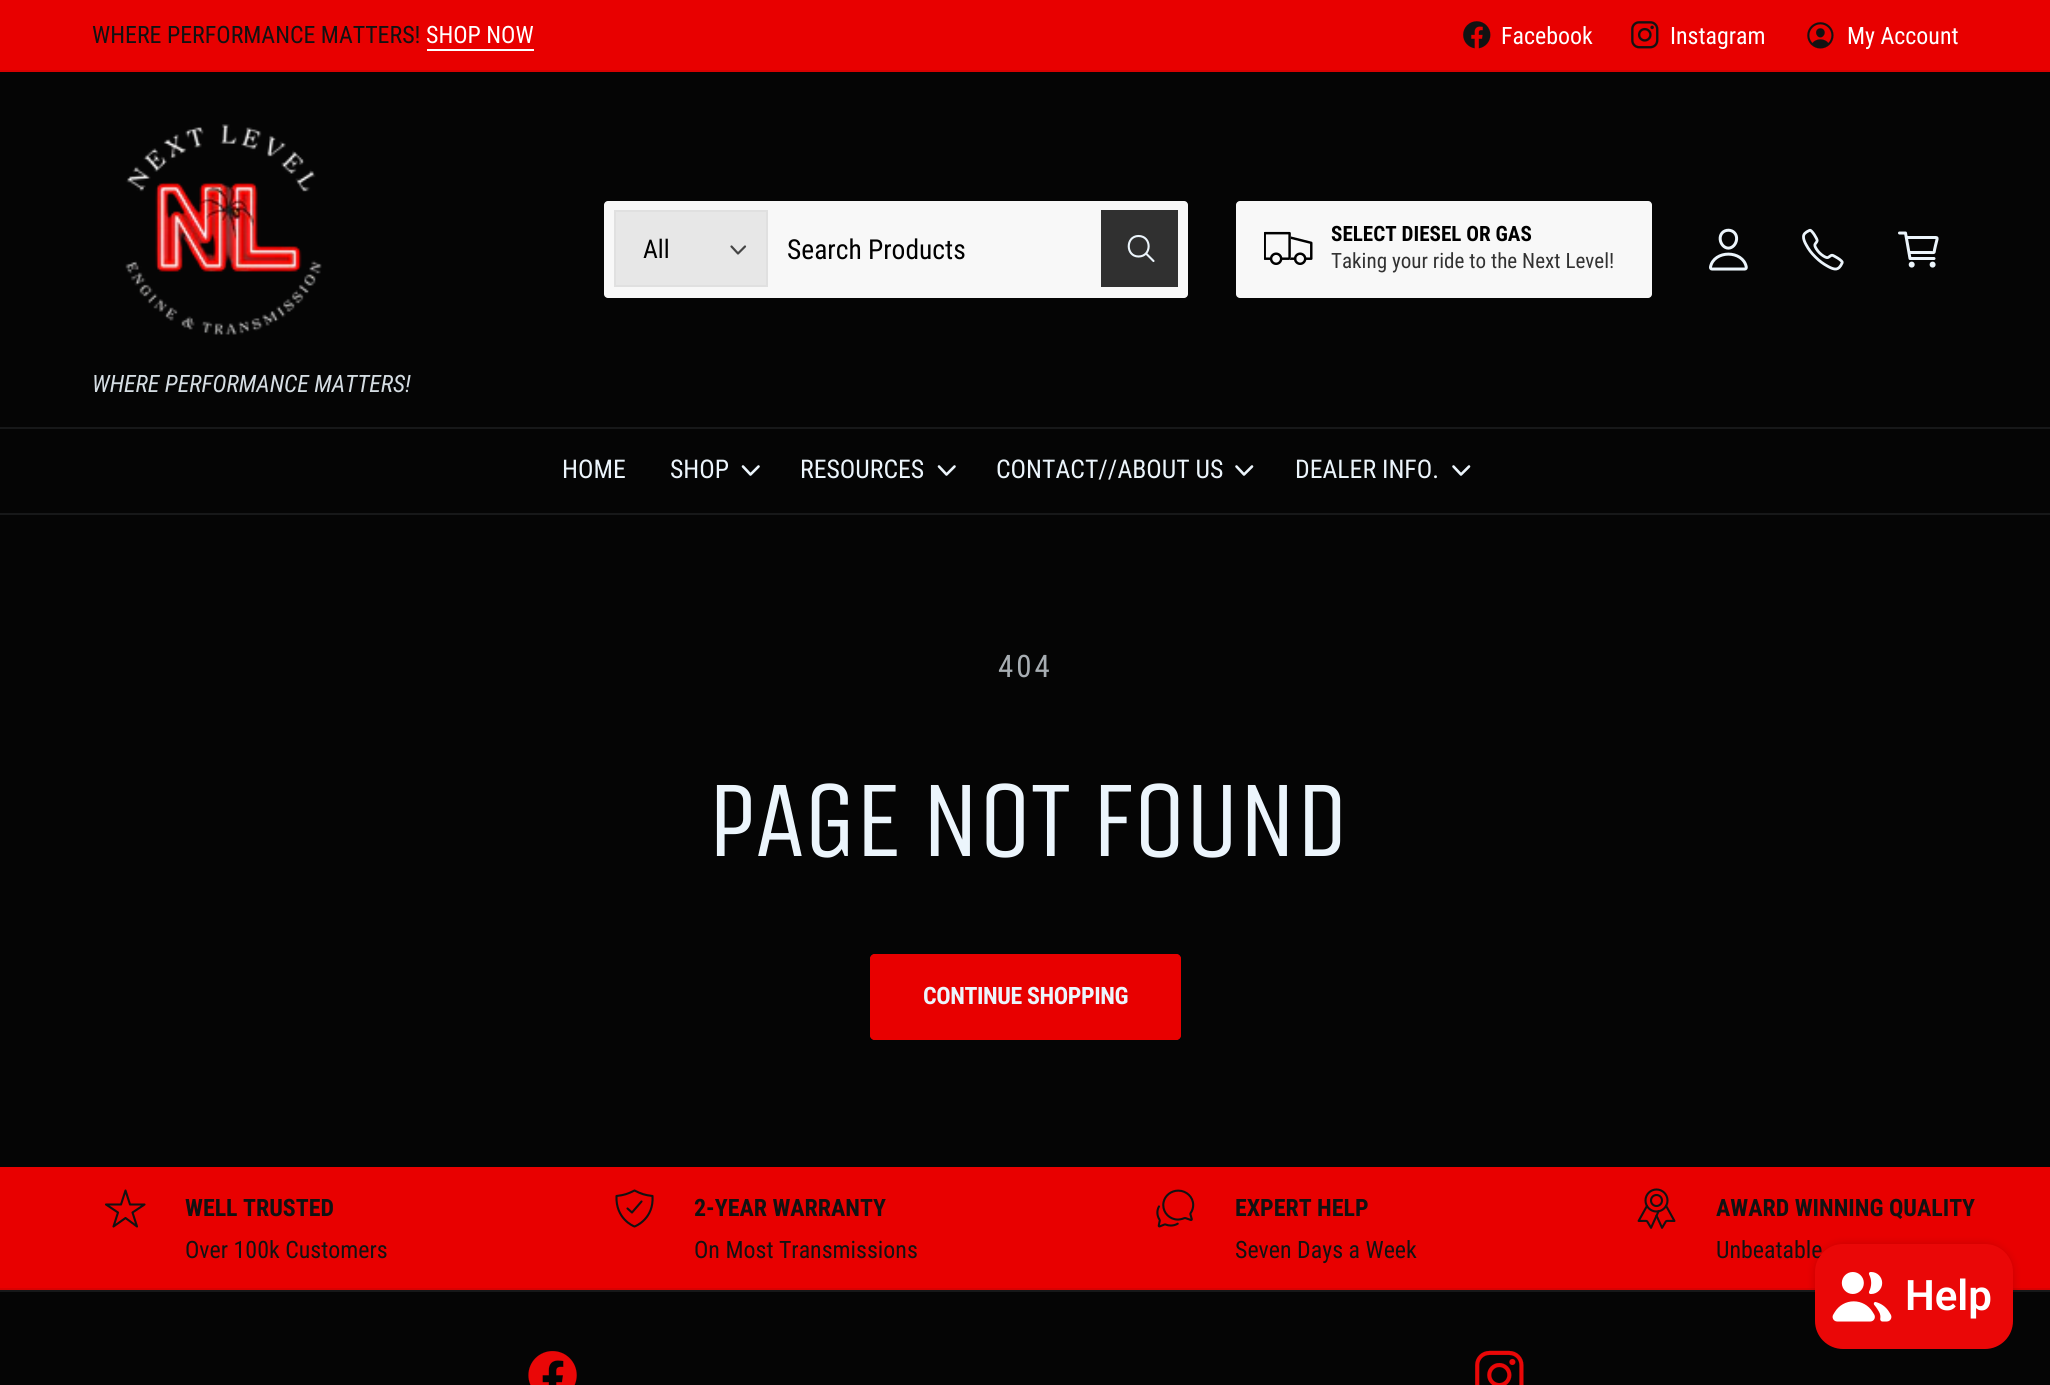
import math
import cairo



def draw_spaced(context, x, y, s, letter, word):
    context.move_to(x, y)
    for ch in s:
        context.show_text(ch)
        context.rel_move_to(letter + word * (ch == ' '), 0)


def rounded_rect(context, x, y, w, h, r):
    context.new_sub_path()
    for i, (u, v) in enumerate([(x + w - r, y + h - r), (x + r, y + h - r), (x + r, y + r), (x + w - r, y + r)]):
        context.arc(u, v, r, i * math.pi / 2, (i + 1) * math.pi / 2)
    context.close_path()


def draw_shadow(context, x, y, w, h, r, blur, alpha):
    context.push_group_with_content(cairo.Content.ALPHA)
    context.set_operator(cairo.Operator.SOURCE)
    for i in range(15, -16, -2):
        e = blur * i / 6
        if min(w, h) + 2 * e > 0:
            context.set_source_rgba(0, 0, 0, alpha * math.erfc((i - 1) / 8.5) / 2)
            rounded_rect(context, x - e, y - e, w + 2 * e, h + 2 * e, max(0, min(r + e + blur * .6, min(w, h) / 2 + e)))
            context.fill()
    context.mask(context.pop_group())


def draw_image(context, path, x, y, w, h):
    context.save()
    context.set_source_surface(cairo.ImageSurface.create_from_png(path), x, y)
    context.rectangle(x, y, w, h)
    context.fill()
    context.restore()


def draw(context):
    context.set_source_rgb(5 / 255, 5 / 255, 5 / 255)
    context.paint()
    context.set_source_rgb(232 / 255, 0, 0)
    context.rectangle(0, 0, 2050, 70)
    context.fill()
    context.set_source_rgb(215 / 255, 1 / 255, 1 / 255)
    context.rectangle(0, 70, 2050, 2)
    context.fill()
    context.set_source_rgb(1, 1, 1)
    context.rectangle(427, 49, 107, 2)
    context.fill()
    draw_image(context, "images/1.png", 1463, 21, 28, 28)
    draw_image(context, "images/2.png", 1631, 21, 28, 28)
    draw_image(context, "images/3.png", 1807, 22, 27, 27)
    context.set_source_rgb(248 / 255, 248 / 255, 248 / 255)
    rounded_rect(context, 604, 201, 584, 97, 4)
    context.fill()
    context.set_source_rgb(231 / 255, 231 / 255, 231 / 255)
    context.rectangle(615, 211, 152, 75)
    context.fill_preserve()
    context.set_source_rgb(224 / 255, 224 / 255, 224 / 255)
    context.stroke()
    context.new_path()
    context.move_to(731.5, 246.5)
    context.line_to(738, 253.5)
    context.line_to(745, 246.5)
    context.set_source_rgb(69 / 255, 69 / 255, 69 / 255)
    context.set_line_width(2.2)
    context.set_line_cap(cairo.LineCap.ROUND)
    context.set_line_join(cairo.LineJoin.ROUND)
    context.stroke()
    context.set_source_rgb(48 / 255, 48 / 255, 48 / 255)
    context.rectangle(1101, 210, 77, 77)
    context.fill()
    context.new_path()
    context.move_to(1138.5, 236)
    context.curve_to(1125.5, 236, 1125.5, 256.5, 1138.5, 256.5)
    context.curve_to(1152, 256.5, 1152, 236, 1138.5, 236)
    context.close_path()
    context.set_source_rgb(236 / 255, 245 / 255, 252 / 255)
    context.set_line_width(2.1)
    context.set_line_cap(cairo.LineCap.BUTT)
    context.set_line_join(cairo.LineJoin.MITER)
    context.stroke()
    context.new_path()
    context.move_to(1146.5, 254)
    context.line_to(1153.5, 261)
    context.set_line_cap(cairo.LineCap.ROUND)
    context.stroke()
    context.set_source_rgb(248 / 255, 248 / 255, 248 / 255)
    rounded_rect(context, 1236, 201, 416, 97, 4)
    context.fill()
    draw_image(context, "images/4.png", 1264, 231, 49, 34)
    draw_image(context, "images/5.png", 1709, 228, 39, 43)
    draw_image(context, "images/6.png", 1802, 228, 42, 43)
    context.arc(1911.7, 264.6, 1.5, 0, 2 * math.pi)
    context.set_source_rgb(236 / 255, 245 / 255, 252 / 255)
    context.set_line_width(3)
    context.set_line_cap(cairo.LineCap.BUTT)
    context.stroke()
    context.arc(1932.6, 264.6, 1.5, 0, 2 * math.pi)
    context.stroke()
    context.new_path()
    context.move_to(1899.5, 233)
    context.line_to(1905.5, 233)
    context.line_to(1910, 258.5)
    context.line_to(1934, 258.5)
    context.move_to(1910, 252.5)
    context.line_to(1929.5, 252.5)
    context.curve_to(1934.5, 252.5, 1934, 253.5, 1934.5, 250)
    context.line_to(1935.5, 245.5)
    context.curve_to(1937.5, 236.5, 1939, 237.5, 1931.5, 237.5)
    context.line_to(1907, 237.5)
    context.set_line_cap(cairo.LineCap.ROUND)
    context.set_line_join(cairo.LineJoin.ROUND)
    context.stroke()
    draw_image(context, "images/7.png", 125, 124, 197, 211)
    context.set_source_rgb(23 / 255, 24 / 255, 25 / 255)
    context.rectangle(0, 427, 2050, 2)
    context.fill()
    context.rectangle(0, 513, 2050, 2)
    context.fill()
    context.new_path()
    context.move_to(743, 466.5)
    context.line_to(750.5, 474.5)
    context.line_to(758.5, 466.5)
    context.set_source_rgb(236 / 255, 245 / 255, 252 / 255)
    context.set_line_width(2.6)
    context.stroke()
    context.new_path()
    context.move_to(939, 466.5)
    context.line_to(946.5, 474.5)
    context.line_to(954.5, 466.5)
    context.stroke()
    context.new_path()
    context.move_to(1236.5, 466.5)
    context.line_to(1244, 474.5)
    context.line_to(1252, 466.5)
    context.stroke()
    context.new_path()
    context.move_to(1453.5, 466.5)
    context.line_to(1461, 474.5)
    context.line_to(1469, 466.5)
    context.stroke()
    context.set_source_rgb(232 / 255, 0, 0)
    rounded_rect(context, 870, 954, 311, 86, 5)
    context.fill()
    rounded_rect(context, 871, 955, 309, 84, 4)
    context.set_line_width(2)
    context.set_line_cap(cairo.LineCap.BUTT)
    context.set_line_join(cairo.LineJoin.MITER)
    context.stroke()
    context.rectangle(0, 1167, 2050, 121)
    context.fill()
    context.set_source_rgb(215 / 255, 1 / 255, 1 / 255)
    context.rectangle(0, 1288, 2050, 2)
    context.fill()
    context.new_path()
    context.move_to(144.5, 1204.5)
    context.line_to(130, 1204.5)
    context.line_to(125.5, 1190.5)
    context.line_to(121, 1204.5)
    context.line_to(106, 1204.5)
    context.line_to(118, 1212.5)
    context.line_to(113.5, 1226.5)
    context.line_to(125.5, 1218)
    context.line_to(137, 1226.5)
    context.line_to(132.5, 1212.5)
    context.close_path()
    context.set_source_rgb(18 / 255, 18 / 255, 18 / 255)
    context.set_line_width(2.1)
    context.set_line_join(cairo.LineJoin.ROUND)
    context.stroke()
    context.new_path()
    context.move_to(641.5, 1201.5)
    context.line_to(632, 1212.5)
    context.line_to(627.5, 1208.5)
    context.move_to(652.5, 1196)
    context.curve_to(644.5, 1195, 641.5, 1194, 634.5, 1190.5)
    context.curve_to(627.5, 1194, 624.5, 1195, 616.5, 1196)
    context.curve_to(615.5, 1218.5, 633, 1226, 634.5, 1226.5)
    context.curve_to(636, 1226, 654, 1218.5, 652.5, 1196)
    context.close_path()
    context.set_line_cap(cairo.LineCap.ROUND)
    context.stroke()
    draw_image(context, "images/8.png", 1156, 1189, 39, 39)
    draw_image(context, "images/9.png", 1637, 1188, 39, 41)
    context.set_source_rgb(23 / 255, 24 / 255, 25 / 255)
    context.rectangle(0, 1290, 2050, 2)
    context.fill()
    context.set_source_rgb(0, 0, 0)
    draw_shadow(context, 1815, 1244, 198, 105, 28, 4.5, 0.15)
    draw_image(context, "images/11.png", 528, 1351, 49, 34)
    draw_image(context, "images/12.png", 1475, 1350, 49, 35)
    context.select_font_face("Roboto Condensed")
    context.set_font_size(23.9)
    context.set_source_rgb(18 / 255, 18 / 255, 18 / 255)
    context.move_to(92, 43)
    context.show_text("WHERE PERFORMANCE MATTERS!")
    context.set_source_rgb(1, 1, 1)
    context.move_to(426, 43)
    context.show_text("SHOP NOW")
    context.move_to(1501, 44)
    context.show_text("Facebook")
    context.move_to(1670, 44)
    context.show_text("Instagram")
    context.move_to(1847, 44)
    context.show_text("My Account")
    context.set_font_size(25.75)
    context.set_source_rgb(0, 0, 0)
    context.move_to(643, 258)
    context.show_text("All")
    context.set_font_size(27.5)
    context.move_to(787, 259)
    context.show_text("Search Products")
    context.select_font_face("Roboto Condensed", cairo.FontSlant.NORMAL, cairo.FontWeight.BOLD)
    context.set_font_size(21.1)
    context.move_to(1331, 241)
    context.show_text("SELECT DIESEL OR GAS")
    context.select_font_face("Roboto Condensed")
    context.set_source_rgb(50 / 255, 50 / 255, 50 / 255)
    context.move_to(1331, 268)
    context.show_text("Taking your ride to the Next Level!")
    context.select_font_face("Roboto Condensed", cairo.FontSlant.ITALIC)
    context.set_font_size(23.9)
    context.set_source_rgb(213 / 255, 221 / 255, 227 / 255)
    context.move_to(92, 392)
    context.show_text("WHERE PERFORMANCE MATTERS!")
    context.select_font_face("Roboto Condensed")
    context.set_font_size(25.75)
    context.set_source_rgb(236 / 255, 245 / 255, 252 / 255)
    context.move_to(562, 478)
    context.show_text("HOME")
    context.move_to(670, 478)
    context.show_text("SHOP")
    context.move_to(800, 478)
    context.show_text("RESOURCES")
    context.move_to(996, 478)
    context.show_text("CONTACT//ABOUT US")
    context.move_to(1295, 478)
    context.show_text("DEALER INFO.")
    context.set_font_size(31)
    context.set_source_rgb(167 / 255, 173 / 255, 178 / 255)
    draw_spaced(context, 998, 677, "404", 3, 0)
    context.select_font_face("Unica One")
    context.set_font_size(109.25)
    context.set_source_rgb(236 / 255, 245 / 255, 252 / 255)
    draw_spaced(context, 706, 856, "PAGE NOT FOUND", -3.6, 0)
    context.select_font_face("Roboto Condensed", cairo.FontSlant.NORMAL, cairo.FontWeight.BOLD)
    context.set_font_size(23.9)
    draw_spaced(context, 923, 1004, "CONTINUE SHOPPING", -0.4, 0)
    context.set_source_rgb(18 / 255, 18 / 255, 18 / 255)
    context.move_to(185, 1216)
    context.show_text("WELL TRUSTED")
    context.select_font_face("Roboto Condensed")
    context.move_to(185, 1258)
    context.show_text("Over 100k Customers")
    context.select_font_face("Roboto Condensed", cairo.FontSlant.NORMAL, cairo.FontWeight.BOLD)
    context.move_to(694, 1216)
    context.show_text("2-YEAR WARRANTY")
    context.select_font_face("Roboto Condensed")
    context.move_to(694, 1258)
    context.show_text("On Most Transmissions")
    context.select_font_face("Roboto Condensed", cairo.FontSlant.NORMAL, cairo.FontWeight.BOLD)
    context.move_to(1235, 1216)
    context.show_text("EXPERT HELP")
    context.select_font_face("Roboto Condensed")
    context.move_to(1235, 1258)
    context.show_text("Seven Days a Week")
    context.select_font_face("Roboto Condensed", cairo.FontSlant.NORMAL, cairo.FontWeight.BOLD)
    context.move_to(1716, 1216)
    context.show_text("AWARD WINNING QUALITY")
    context.select_font_face("Roboto Condensed")
    context.move_to(1716, 1258)
    context.show_text("Unbeatable")
    context.set_source_rgb(234 / 255, 7 / 255, 7 / 255)
    rounded_rect(context, 1815, 1244, 198, 105, 28)
    context.fill()
    draw_image(context, "images/10.png", 1832, 1272, 60, 50)
    context.select_font_face("Roboto SemiBold")
    context.set_font_size(42)
    context.set_source_rgb(1, 1, 1)
    context.move_to(1905, 1310)
    context.show_text("Help")


surface = cairo.ImageSurface(cairo.Format.RGB24, 2050, 1385)
context = cairo.Context(surface)
options = cairo.FontOptions()
options.set_hint_metrics(cairo.HintMetrics.OFF)
options.set_hint_style(cairo.HintStyle.NONE)
context.set_font_options(options)
context.set_miter_limit(4)
draw(context)
surface.write_to_png("out.png")
